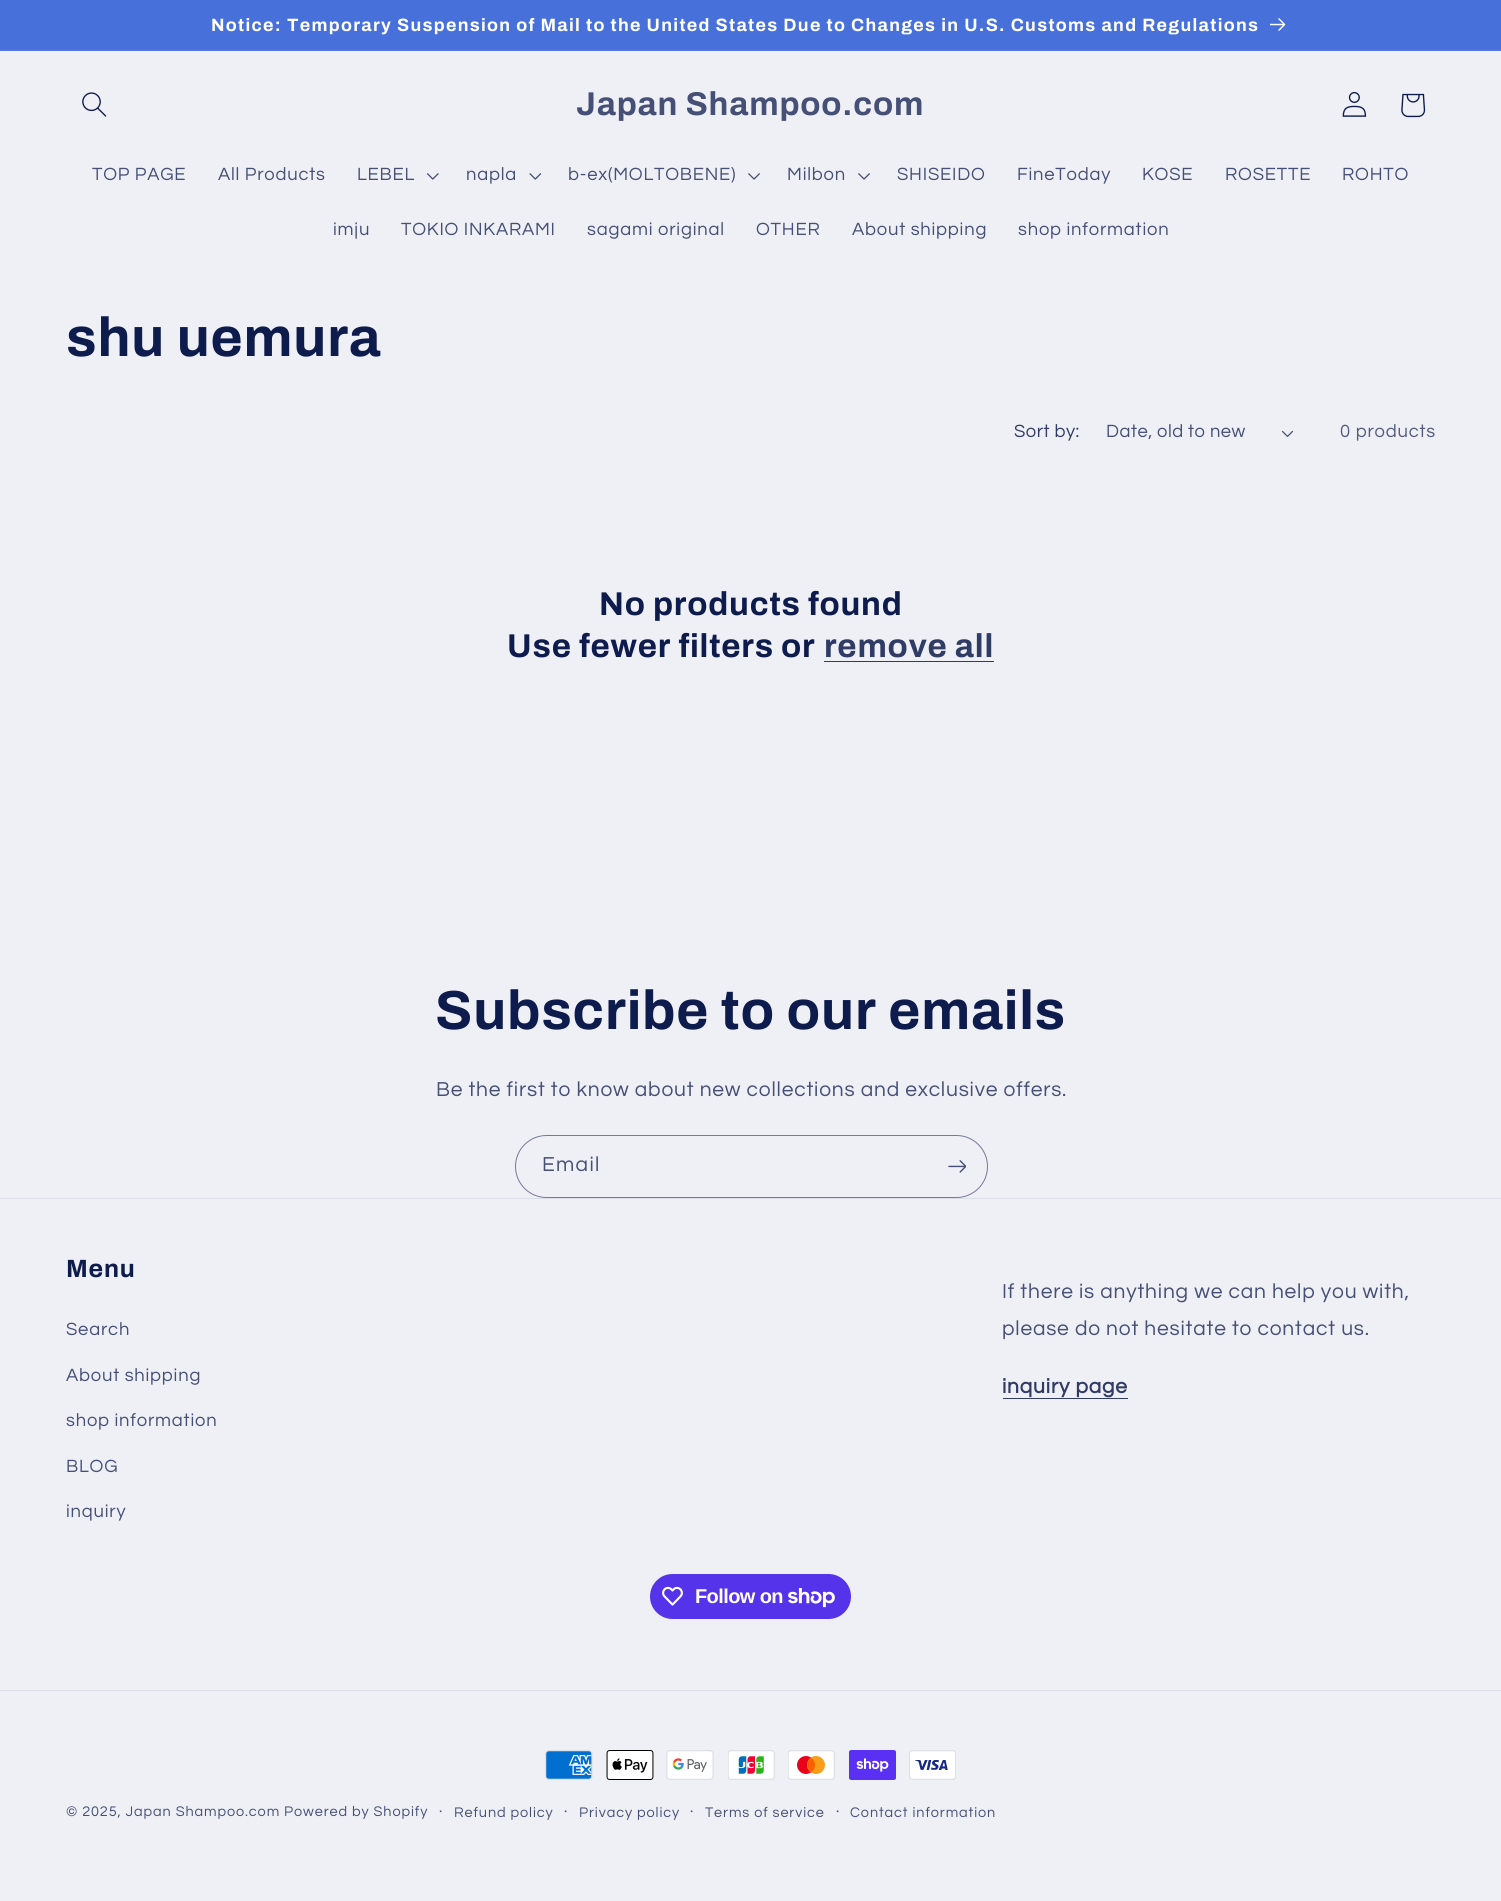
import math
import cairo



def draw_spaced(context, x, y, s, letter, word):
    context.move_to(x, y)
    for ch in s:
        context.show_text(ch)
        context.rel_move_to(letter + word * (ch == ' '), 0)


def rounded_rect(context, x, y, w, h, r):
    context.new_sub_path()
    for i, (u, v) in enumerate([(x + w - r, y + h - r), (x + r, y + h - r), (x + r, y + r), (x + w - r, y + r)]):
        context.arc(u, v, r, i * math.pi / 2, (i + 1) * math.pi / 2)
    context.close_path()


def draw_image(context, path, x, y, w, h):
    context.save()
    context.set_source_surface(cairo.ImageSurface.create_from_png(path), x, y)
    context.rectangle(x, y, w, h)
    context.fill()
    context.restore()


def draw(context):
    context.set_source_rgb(239 / 255, 240 / 255, 245 / 255)
    context.paint()
    context.set_source_rgb(71 / 255, 112 / 255, 219 / 255)
    context.rectangle(0, 0, 1501, 50)
    context.fill()
    context.set_source_rgb(86 / 255, 123 / 255, 222 / 255)
    context.rectangle(0, 50, 1501, 1)
    context.fill()
    draw_image(context, "images/1.png", 1270, 18, 16, 13)
    draw_image(context, "images/2.png", 82, 92, 25, 25)
    draw_image(context, "images/3.png", 1342, 91, 25, 26)
    draw_image(context, "images/4.png", 1401, 93, 25, 25)
    draw_image(context, "images/5.png", 427, 173, 12, 7)
    draw_image(context, "images/6.png", 529, 173, 12, 7)
    draw_image(context, "images/7.png", 748, 173, 12, 7)
    draw_image(context, "images/7.png", 858, 173, 12, 7)
    draw_image(context, "images/8.png", 1281, 430, 13, 7)
    context.set_source_rgb(48 / 255, 59 / 255, 102 / 255)
    context.rectangle(824, 661, 170, 1)
    context.fill()
    rounded_rect(context, 515.5, 1135.5, 472, 62, 31)
    context.set_source_rgb(115 / 255, 123 / 255, 153 / 255)
    context.set_line_width(1)
    context.stroke()
    draw_image(context, "images/9.png", 948, 1160, 18, 13)
    context.set_source_rgb(221 / 255, 223 / 255, 232 / 255)
    context.rectangle(0, 1198, 1501, 1)
    context.fill()
    context.set_source_rgb(48 / 255, 59 / 255, 102 / 255)
    context.rectangle(1003, 1398, 125, 1)
    context.fill()
    context.set_source_rgb(84 / 255, 51 / 255, 235 / 255)
    rounded_rect(context, 650, 1574, 201, 45, 22.5)
    context.fill()
    draw_image(context, "images/10.png", 662, 1586, 21, 20)
    draw_image(context, "images/11.png", 788, 1588, 47, 20)
    context.set_source_rgb(221 / 255, 223 / 255, 232 / 255)
    context.rectangle(0, 1690, 1501, 1)
    context.fill()
    draw_image(context, "images/12.png", 545, 1750, 48, 30)
    draw_image(context, "images/13.png", 606, 1750, 48, 30)
    draw_image(context, "images/14.png", 666, 1750, 48, 30)
    draw_image(context, "images/15.png", 728, 1750, 47, 30)
    draw_image(context, "images/16.png", 788, 1750, 47, 30)
    draw_image(context, "images/17.png", 849, 1750, 47, 30)
    draw_image(context, "images/18.png", 909, 1750, 47, 30)
    context.select_font_face("Archivo", cairo.FontSlant.NORMAL, cairo.FontWeight.BOLD)
    context.set_font_size(17.88)
    context.set_source_rgb(1, 1, 1)
    draw_spaced(context, 211, 31, "Notice: Temporary Suspension of Mail to the United States Due to Changes in U.S. Customs and Regulations", 1.31, 0)
    context.set_font_size(33)
    context.set_source_rgb(70 / 255, 80 / 255, 119 / 255)
    draw_spaced(context, 576, 115, "Japan Shampoo.com", 0.8, 0)
    context.select_font_face("Questrial")
    context.set_font_size(18.4)
    draw_spaced(context, 92, 180, "TOP PAGE", 0.8, 0)
    draw_spaced(context, 218, 180, "All Products", 0.8, 0)
    draw_spaced(context, 357, 180, "LEBEL", 0.8, 0)
    draw_spaced(context, 466, 180, "napla", 0.8, 0)
    draw_spaced(context, 568, 180, "b-ex(MOLTOBENE)", 0.8, 0)
    draw_spaced(context, 787, 180, "Milbon", 0.8, 0)
    draw_spaced(context, 897, 180, "SHISEIDO", 0.8, 0)
    draw_spaced(context, 1017, 180, "FineToday", 0.8, 0)
    draw_spaced(context, 1142, 180, "KOSE", 0.8, 0)
    draw_spaced(context, 1225, 180, "ROSETTE", 0.8, 0)
    draw_spaced(context, 1342, 180, "ROHTO", 0.8, 0)
    draw_spaced(context, 333, 235, "imju", 0.8, 0)
    draw_spaced(context, 401, 235, "TOKIO INKARAMI", 0.8, 0)
    draw_spaced(context, 587, 235, "sagami original", 0.8, 0)
    draw_spaced(context, 756, 235, "OTHER", 0.8, 0)
    draw_spaced(context, 852, 235, "About shipping", 0.8, 0)
    draw_spaced(context, 1018, 235, "shop information", 0.8, 0)
    context.select_font_face("Archivo", cairo.FontSlant.NORMAL, cairo.FontWeight.BOLD)
    context.set_font_size(55)
    context.set_source_rgb(14 / 255, 27 / 255, 77 / 255)
    draw_spaced(context, 66, 356, "shu uemura", 0.8, 0)
    context.select_font_face("Questrial")
    context.set_font_size(18.4)
    context.set_source_rgb(48 / 255, 59 / 255, 102 / 255)
    draw_spaced(context, 1014, 437, "Sort by:", 0.5, 0)
    context.set_source_rgb(70 / 255, 80 / 255, 119 / 255)
    draw_spaced(context, 1106, 437, "Date, old to new", 0.5, 0)
    context.set_source_rgb(82 / 255, 91 / 255, 127 / 255)
    draw_spaced(context, 1340, 437, "0 products", 0.8, 0)
    context.select_font_face("Archivo", cairo.FontSlant.NORMAL, cairo.FontWeight.BOLD)
    context.set_font_size(33)
    context.set_source_rgb(14 / 255, 27 / 255, 77 / 255)
    draw_spaced(context, 599, 615, "No products found", 0.8, 0)
    draw_spaced(context, 507, 657, "Use fewer filters or", 0.8, 0)
    context.set_source_rgb(48 / 255, 59 / 255, 102 / 255)
    draw_spaced(context, 824, 657, "remove all", 0.8, 0)
    context.set_font_size(55)
    context.set_source_rgb(14 / 255, 27 / 255, 77 / 255)
    draw_spaced(context, 435, 1029, "Subscribe to our emails", 0.8, 0)
    context.select_font_face("Questrial")
    context.set_font_size(21)
    context.set_source_rgb(70 / 255, 80 / 255, 119 / 255)
    draw_spaced(context, 436, 1096, "Be the first to know about new collections and exclusive offers.", 0.8, 0)
    draw_spaced(context, 542, 1171, "Email", 1.31, 0)
    context.select_font_face("Archivo", cairo.FontSlant.NORMAL, cairo.FontWeight.BOLD)
    context.set_font_size(25)
    context.set_source_rgb(14 / 255, 27 / 255, 77 / 255)
    draw_spaced(context, 66, 1277, "Menu", 0.8, 0)
    context.select_font_face("Questrial")
    context.set_font_size(18.4)
    context.set_source_rgb(70 / 255, 80 / 255, 119 / 255)
    draw_spaced(context, 66, 1335, "Search", 0.8, 0)
    draw_spaced(context, 66, 1381, "About shipping", 0.8, 0)
    draw_spaced(context, 66, 1426, "shop information", 0.8, 0)
    draw_spaced(context, 66, 1472, "BLOG", 0.8, 0)
    draw_spaced(context, 66, 1517, "inquiry", 0.8, 0)
    context.set_font_size(21)
    draw_spaced(context, 1002, 1298, "If there is anything we can help you with,", 0.8, 0)
    draw_spaced(context, 1002, 1335, "please do not hesitate to contact us.", 0.8, 0)
    context.select_font_face("Questrial", cairo.FontSlant.NORMAL, cairo.FontWeight.BOLD)
    context.set_source_rgb(48 / 255, 59 / 255, 102 / 255)
    draw_spaced(context, 1002, 1393, "inquiry page", 0.8, 0)
    context.select_font_face("Liberation Sans", cairo.FontSlant.NORMAL, cairo.FontWeight.BOLD)
    context.set_font_size(20)
    context.set_source_rgb(1, 1, 1)
    draw_spaced(context, 695, 1603, "Follow on", -0.6, 0)
    context.select_font_face("Questrial")
    context.set_font_size(14.45)
    context.set_source_rgb(70 / 255, 80 / 255, 119 / 255)
    draw_spaced(context, 66, 1816, "© 2025, Japan Shampoo.com Powered by Shopify", 0.9, 0)
    context.set_font_size(16)
    draw_spaced(context, 439, 1816, "·", 0.9, 0)
    context.set_font_size(14.45)
    draw_spaced(context, 454, 1817, "Refund policy", 0.9, 0)
    context.set_font_size(16)
    draw_spaced(context, 564, 1816, "·", 0.9, 0)
    context.set_font_size(14.45)
    draw_spaced(context, 579, 1817, "Privacy policy", 0.9, 0)
    context.set_font_size(16)
    draw_spaced(context, 690, 1816, "·", 0.9, 0)
    context.set_font_size(14.45)
    draw_spaced(context, 705, 1817, "Terms of service", 0.9, 0)
    context.set_font_size(16)
    draw_spaced(context, 836, 1816, "·", 0.9, 0)
    context.set_font_size(14.45)
    draw_spaced(context, 850, 1817, "Contact information", 0.9, 0)


surface = cairo.ImageSurface(cairo.Format.RGB24, 1501, 1901)
context = cairo.Context(surface)
options = cairo.FontOptions()
options.set_hint_metrics(cairo.HintMetrics.OFF)
options.set_hint_style(cairo.HintStyle.NONE)
context.set_font_options(options)
context.set_miter_limit(4)
draw(context)
surface.write_to_png("out.png")
